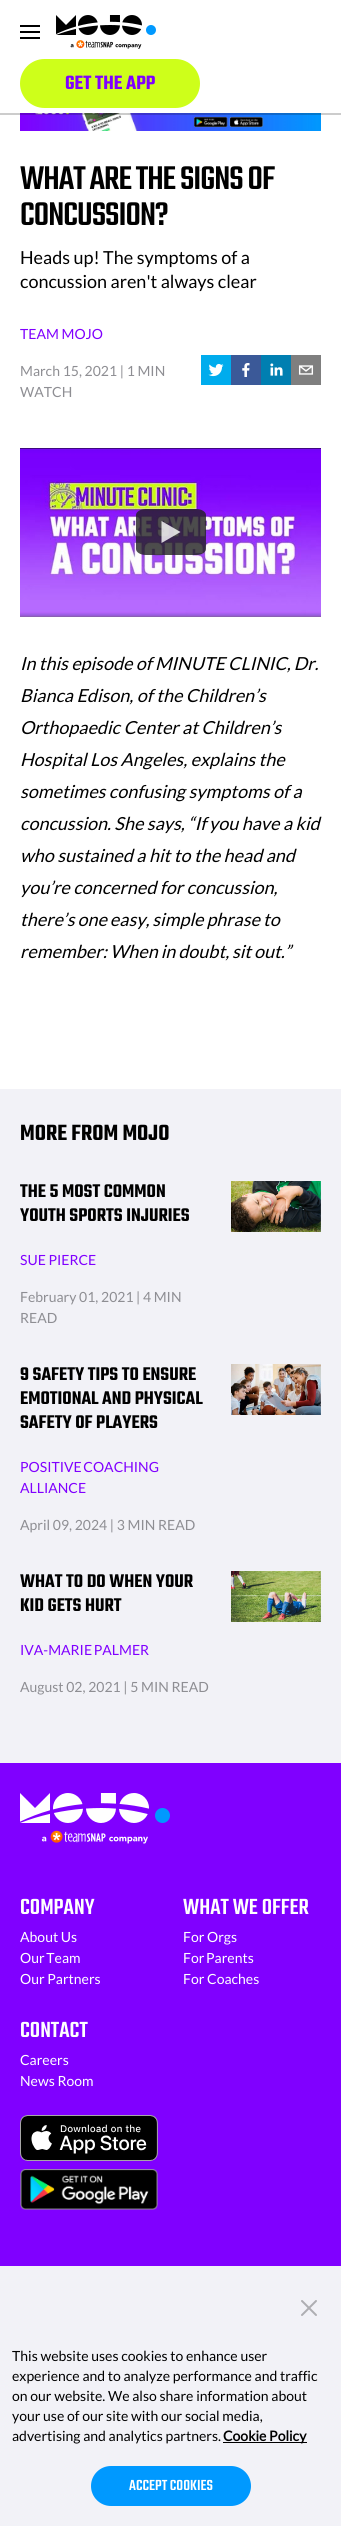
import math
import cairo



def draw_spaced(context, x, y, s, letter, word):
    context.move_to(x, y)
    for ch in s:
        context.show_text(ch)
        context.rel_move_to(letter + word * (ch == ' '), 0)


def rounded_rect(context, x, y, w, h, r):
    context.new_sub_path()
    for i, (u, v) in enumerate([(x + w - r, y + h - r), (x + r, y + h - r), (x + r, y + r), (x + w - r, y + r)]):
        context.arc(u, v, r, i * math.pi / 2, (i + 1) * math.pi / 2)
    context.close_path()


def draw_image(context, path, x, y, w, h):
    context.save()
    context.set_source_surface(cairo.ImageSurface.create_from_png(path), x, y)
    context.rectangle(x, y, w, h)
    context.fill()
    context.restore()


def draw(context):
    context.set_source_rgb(1, 1, 1)
    context.paint()
    draw_image(context, "images/3.png", 20, 113, 301, 18)
    context.set_source_rgba(0, 0, 0, 0.2)
    context.rectangle(0, 113, 341, 2)
    context.fill()
    draw_image(context, "images/1.png", 20, 25, 20, 14)
    draw_image(context, "images/2.png", 56, 15, 100, 34)
    context.set_source_rgb(206 / 255, 1, 26 / 255)
    rounded_rect(context, 20, 59, 180, 49, 24.5)
    context.fill()
    draw_image(context, "images/4.png", 201, 355, 30, 30)
    draw_image(context, "images/5.png", 231, 355, 30, 30)
    draw_image(context, "images/6.png", 261, 355, 30, 30)
    draw_image(context, "images/7.png", 291, 355, 30, 30)
    draw_image(context, "images/8.png", 20, 448, 301, 169)
    context.set_source_rgba(33 / 255, 33 / 255, 33 / 255, 0.8)
    context.new_path()
    context.move_to(146, 509)
    context.line_to(196, 509)
    context.curve_to(202, 509, 206, 512, 206, 515)
    context.line_to(206, 549)
    context.curve_to(206, 552, 202, 555, 196, 555)
    context.line_to(146, 555)
    context.curve_to(140, 555, 136, 552, 136, 549)
    context.line_to(136, 515)
    context.curve_to(136, 512, 140, 509, 146, 509)
    context.close_path()
    context.fill()
    context.set_source_rgba(1, 1, 1, 0.8)
    context.new_path()
    context.move_to(161.5, 543)
    context.line_to(161.5, 521)
    context.line_to(180.5, 532)
    context.close_path()
    context.fill()
    context.set_source_rgb(242 / 255, 242 / 255, 247 / 255)
    context.rectangle(0, 1089, 341, 674)
    context.fill()
    draw_image(context, "images/9.png", 231, 1181, 90, 51)
    draw_image(context, "images/10.png", 231, 1364, 90, 51)
    draw_image(context, "images/11.png", 231, 1571, 90, 51)
    context.set_source_rgb(128 / 255, 0, 1)
    context.rectangle(0, 1763, 341, 503)
    context.fill()
    draw_image(context, "images/12.png", 20, 1793, 150, 51)
    draw_image(context, "images/13.png", 20, 2115, 138, 46)
    draw_image(context, "images/14.png", 20, 2169, 138, 41)
    context.set_source_rgb(242 / 255, 242 / 255, 247 / 255)
    context.rectangle(0, 2266, 341, 260)
    context.fill()
    draw_image(context, "images/15.png", 301, 2300, 16, 16)
    context.set_source_rgb(0, 0, 0)
    context.rectangle(223, 2442, 84, 1)
    context.fill()
    context.set_source_rgb(0, 153 / 255, 1)
    rounded_rect(context, 91, 2466, 160, 40, 20)
    context.fill()
    context.select_font_face("Teko SemiBold")
    context.set_font_size(21)
    context.set_source_rgb(128 / 255, 0, 1)
    context.move_to(65, 89)
    context.show_text("GET THE APP")
    context.select_font_face("Teko Medium")
    context.set_font_size(36)
    context.set_source_rgb(0, 0, 0)
    draw_spaced(context, 20, 189, "WHAT ARE THE SIGNS OF", -1, 0)
    draw_spaced(context, 20, 225, "CONCUSSION?", -1, 0)
    context.select_font_face("Lato")
    context.set_font_size(18)
    context.move_to(20, 264)
    context.show_text("Heads up! The symptoms of a")
    context.move_to(20, 288)
    context.show_text("concussion aren't always clear")
    context.set_font_size(14)
    context.set_source_rgb(128 / 255, 0, 1)
    context.move_to(20, 339)
    context.show_text("TEAM MOJO")
    context.set_source_rgb(142 / 255, 142 / 255, 147 / 255)
    context.move_to(20, 376)
    context.show_text("March 15, 2021 | 1 MIN")
    context.move_to(20, 397)
    context.show_text("WATCH")
    context.select_font_face("Lato", cairo.FontSlant.ITALIC)
    context.set_font_size(18)
    context.set_source_rgb(0, 0, 0)
    draw_spaced(context, 20, 670, "In this episode of MINUTE CLINIC, Dr.", 0, -0.25)
    context.move_to(20, 702)
    context.show_text("Bianca Edison, of the Children’s")
    context.move_to(20, 734)
    context.show_text("Orthopaedic Center at Children’s")
    context.move_to(20, 766)
    context.show_text("Hospital Los Angeles, explains the")
    context.move_to(20, 798)
    context.show_text("sometimes confusing symptoms of a")
    context.move_to(20, 830)
    context.show_text("concussion. She says, “If")
    context.move_to(209, 830)
    context.show_text("you have a kid")
    context.move_to(20, 862)
    context.show_text("who sustained a hit to the head and")
    context.move_to(20, 894)
    context.show_text("you’re concerned for concussion,")
    draw_spaced(context, 20, 926, "there’s one easy, simple phrase to", 0, -0.5)
    draw_spaced(context, 20, 958, "remember: When in doubt, sit out.”", 0, -0.5)
    context.select_font_face("Teko SemiBold")
    context.set_font_size(24)
    context.move_to(20, 1140)
    context.show_text("MORE FROM MOJO")
    context.set_font_size(20)
    context.move_to(20, 1197)
    context.show_text("THE 5 MOST COMMON")
    context.move_to(20, 1221)
    context.show_text("YOUTH SPORTS INJURIES")
    context.select_font_face("Lato")
    context.set_font_size(14)
    context.set_source_rgb(128 / 255, 0, 1)
    context.move_to(20, 1265)
    context.show_text("SUE PIERCE")
    context.set_source_rgb(142 / 255, 142 / 255, 147 / 255)
    context.move_to(20, 1302)
    context.show_text("February 01, 2021")
    context.move_to(136, 1302)
    context.show_text("| 4 MIN")
    context.move_to(20, 1323)
    context.show_text("READ")
    context.select_font_face("Teko SemiBold")
    context.set_font_size(20)
    context.set_source_rgb(0, 0, 0)
    context.move_to(20, 1380)
    context.show_text("9 SAFETY TIPS TO ENSURE")
    context.move_to(20, 1404)
    context.show_text("EMOTIONAL AND PHYSICAL")
    context.move_to(20, 1428)
    context.show_text("SAFETY OF PLAYERS")
    context.select_font_face("Lato")
    context.set_font_size(14)
    context.set_source_rgb(128 / 255, 0, 1)
    draw_spaced(context, 20, 1472, "POSITIVE COACHING", 0, -1)
    context.move_to(20, 1493)
    context.show_text("ALLIANCE")
    context.set_source_rgb(142 / 255, 142 / 255, 147 / 255)
    context.move_to(20, 1530)
    context.show_text("April 09, 2024 | 3 MIN READ")
    context.select_font_face("Teko SemiBold")
    context.set_font_size(20)
    context.set_source_rgb(0, 0, 0)
    context.move_to(20, 1587)
    context.show_text("WHAT TO DO WHEN YOUR")
    context.move_to(20, 1611)
    context.show_text("KID GETS HURT")
    context.select_font_face("Lato")
    context.set_font_size(14)
    context.set_source_rgb(128 / 255, 0, 1)
    draw_spaced(context, 20, 1655, "IVA-MARIE PALMER", 0, -1)
    context.set_source_rgb(142 / 255, 142 / 255, 147 / 255)
    context.move_to(20, 1692)
    context.show_text("August 02, 2021 | 5 MIN READ")
    context.select_font_face("Teko Medium")
    context.set_font_size(24)
    context.set_source_rgb(1, 1, 1)
    context.move_to(20, 1914)
    context.show_text("COMPANY")
    context.select_font_face("Lato")
    context.set_font_size(14)
    context.move_to(20, 1942)
    context.show_text("About Us")
    draw_spaced(context, 20, 1963, "Our Team", 0, -1)
    context.move_to(20, 1984)
    context.show_text("Our Partners")
    context.select_font_face("Teko Medium")
    context.set_font_size(24)
    context.move_to(183, 1914)
    context.show_text("WHAT WE OFFER")
    context.select_font_face("Lato")
    context.set_font_size(14)
    context.move_to(183, 1942)
    context.show_text("For Orgs")
    draw_spaced(context, 183, 1963, "For Parents", 0, -1)
    context.move_to(183, 1984)
    context.show_text("For Coaches")
    context.select_font_face("Teko Medium")
    context.set_font_size(24)
    context.move_to(20, 2037)
    context.show_text("CONTACT")
    context.select_font_face("Lato")
    context.set_font_size(14)
    context.move_to(20, 2065)
    context.show_text("Careers")
    context.move_to(20, 2086)
    context.show_text("News Room")
    context.set_source_rgb(0, 0, 0)
    context.move_to(12, 2361)
    context.show_text("This website uses cookies to enhance user")
    context.move_to(12, 2381)
    context.show_text("experience and to analyze performance and traffic")
    context.move_to(12, 2401)
    context.show_text("on our website. We also share information about")
    context.move_to(12, 2421)
    context.show_text("your use of our site with our social media,")
    context.move_to(12, 2441)
    context.show_text("advertising and analytics partners.")
    context.select_font_face("Lato", cairo.FontSlant.NORMAL, cairo.FontWeight.BOLD)
    context.move_to(223, 2441)
    context.show_text("Cookie Policy")
    context.select_font_face("Teko Medium")
    context.set_font_size(16)
    context.set_source_rgb(1, 1, 1)
    context.move_to(129, 2490)
    context.show_text("ACCEPT COOKIES")


surface = cairo.ImageSurface(cairo.Format.RGB24, 341, 2526)
context = cairo.Context(surface)
options = cairo.FontOptions()
options.set_hint_metrics(cairo.HintMetrics.OFF)
options.set_hint_style(cairo.HintStyle.NONE)
context.set_font_options(options)
context.set_miter_limit(4)
draw(context)
surface.write_to_png("out.png")
